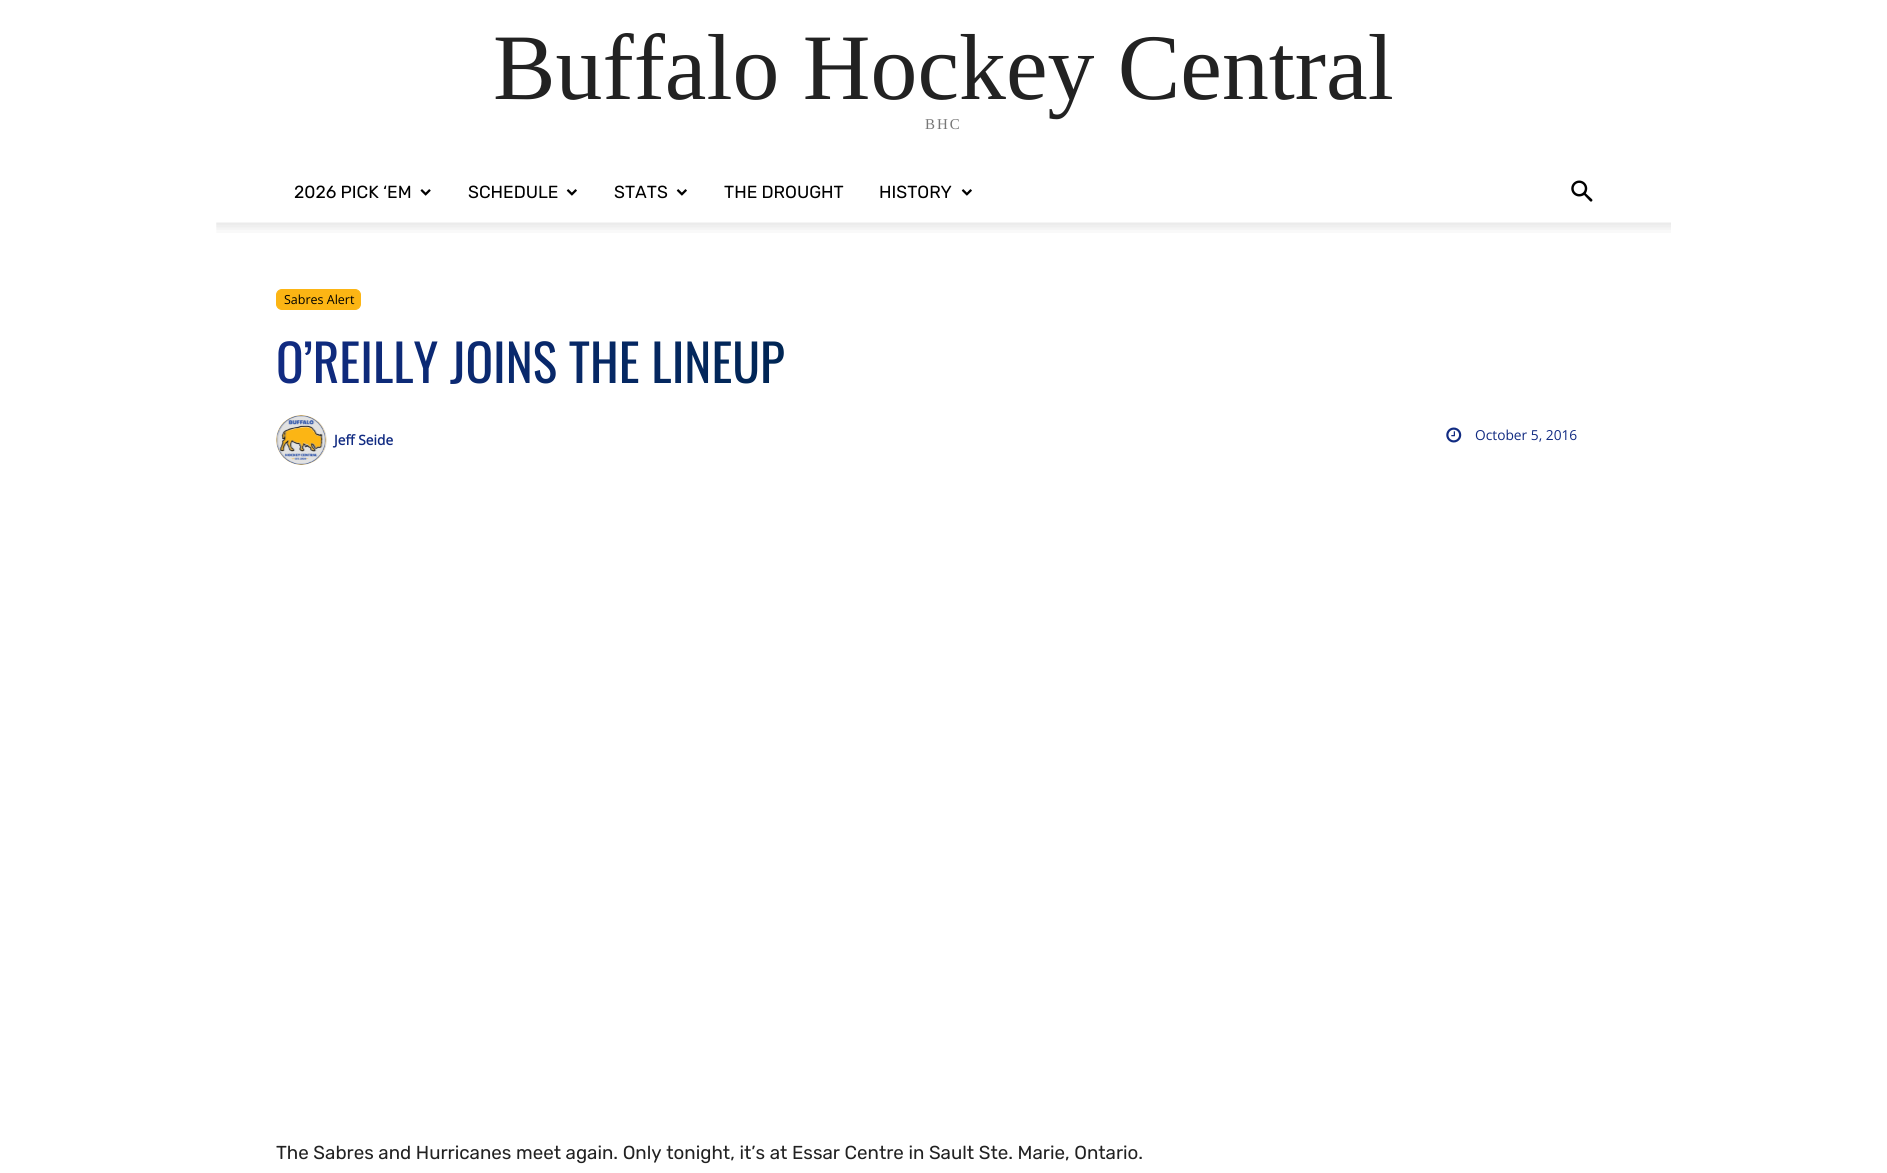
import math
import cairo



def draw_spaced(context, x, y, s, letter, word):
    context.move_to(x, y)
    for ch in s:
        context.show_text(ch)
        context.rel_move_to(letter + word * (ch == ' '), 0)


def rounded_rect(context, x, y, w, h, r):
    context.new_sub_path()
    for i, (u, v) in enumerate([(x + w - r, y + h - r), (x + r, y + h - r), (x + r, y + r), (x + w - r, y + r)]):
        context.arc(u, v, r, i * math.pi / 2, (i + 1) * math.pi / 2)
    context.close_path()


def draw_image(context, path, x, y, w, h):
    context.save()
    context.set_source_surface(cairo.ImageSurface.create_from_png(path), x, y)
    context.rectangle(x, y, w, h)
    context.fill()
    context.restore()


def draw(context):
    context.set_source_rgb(1, 1, 1)
    context.paint()
    draw_image(context, "images/1.png", 420, 189, 11, 7)
    draw_image(context, "images/2.png", 566, 189, 11, 7)
    draw_image(context, "images/2.png", 676, 189, 11, 7)
    draw_image(context, "images/2.png", 961, 189, 11, 7)
    draw_image(context, "images/3.png", 1571, 180, 22, 22)
    draw_image(context, "images/4.png", 216, 222, 1455, 11)
    context.set_source_rgb(252 / 255, 181 / 255, 20 / 255)
    rounded_rect(context, 276.5, 289.5, 84, 20, 5.5)
    context.fill_preserve()
    context.set_line_width(1)
    context.stroke()
    draw_image(context, "images/5.png", 276, 415, 51, 50)
    draw_image(context, "images/6.png", 1446, 427, 16, 16)
    context.select_font_face("Liberation Serif")
    context.set_font_size(93.75)
    context.set_source_rgb(34 / 255, 34 / 255, 34 / 255)
    context.move_to(493, 99)
    context.show_text("Buffalo Hockey Central")
    context.set_font_size(15)
    context.set_source_rgb(119 / 255, 119 / 255, 119 / 255)
    draw_spaced(context, 925, 129, "BHC", 2, 0)
    context.select_font_face("Rubik")
    context.set_font_size(17.5)
    context.set_source_rgb(0, 0, 0)
    context.move_to(294, 198)
    context.show_text("2026 PICK ‘EM")
    context.move_to(468, 198)
    context.show_text("SCHEDULE")
    context.move_to(614, 198)
    context.show_text("STATS")
    context.move_to(724, 198)
    context.show_text("THE DROUGHT")
    context.move_to(879, 198)
    context.show_text("HISTORY")
    context.select_font_face("Open Sans")
    context.set_font_size(12.5)
    context.move_to(284, 304)
    context.show_text("Sabres Alert")
    context.select_font_face("Oswald")
    context.set_font_size(51.25)
    gradient = cairo.LinearGradient(785, 360, 276, 360)
    gradient.add_color_stop_rgba(0, 0, 38 / 255, 84 / 255, 1)
    gradient.add_color_stop_rgba(1, 17 / 255, 43 / 255, 130 / 255, 1)
    context.set_source(gradient)
    context.move_to(276, 383)
    context.show_text("O’REILLY JOINS THE LINEUP")
    context.select_font_face("Open Sans", cairo.FontSlant.NORMAL, cairo.FontWeight.BOLD)
    context.set_font_size(13.75)
    context.set_source_rgb(17 / 255, 43 / 255, 130 / 255)
    context.move_to(334, 445)
    context.show_text("Jeff Seide")
    context.select_font_face("Open Sans")
    context.move_to(1475, 440)
    context.show_text("October 5, 2016")
    context.select_font_face("Rubik")
    context.set_font_size(18.75)
    context.set_source_rgb(34 / 255, 34 / 255, 34 / 255)
    context.move_to(276, 1159)
    context.show_text("The Sabres and Hurricanes meet again. Only tonight, it’s at Essar Centre in Sault Ste. Marie, Ontario.")


surface = cairo.ImageSurface(cairo.Format.RGB24, 1887, 1173)
context = cairo.Context(surface)
options = cairo.FontOptions()
options.set_hint_metrics(cairo.HintMetrics.OFF)
options.set_hint_style(cairo.HintStyle.NONE)
context.set_font_options(options)
context.set_miter_limit(4)
draw(context)
surface.write_to_png("out.png")
